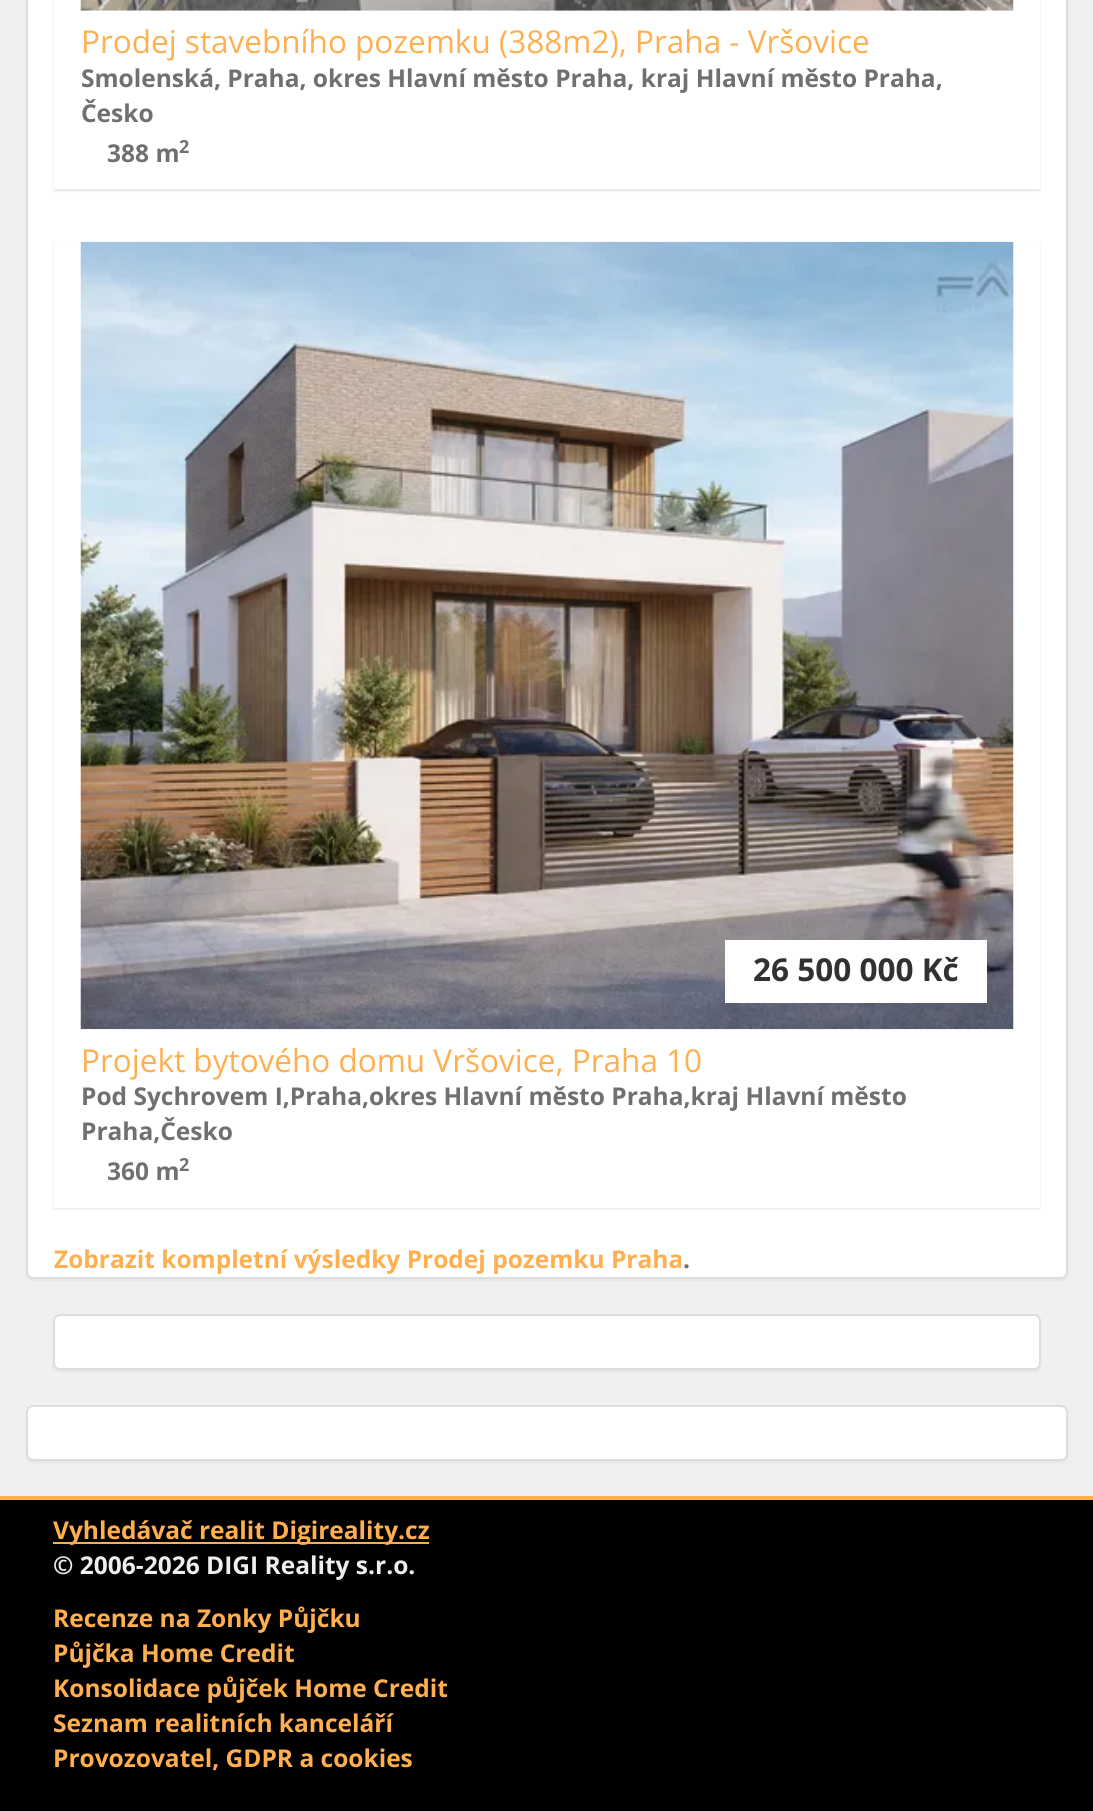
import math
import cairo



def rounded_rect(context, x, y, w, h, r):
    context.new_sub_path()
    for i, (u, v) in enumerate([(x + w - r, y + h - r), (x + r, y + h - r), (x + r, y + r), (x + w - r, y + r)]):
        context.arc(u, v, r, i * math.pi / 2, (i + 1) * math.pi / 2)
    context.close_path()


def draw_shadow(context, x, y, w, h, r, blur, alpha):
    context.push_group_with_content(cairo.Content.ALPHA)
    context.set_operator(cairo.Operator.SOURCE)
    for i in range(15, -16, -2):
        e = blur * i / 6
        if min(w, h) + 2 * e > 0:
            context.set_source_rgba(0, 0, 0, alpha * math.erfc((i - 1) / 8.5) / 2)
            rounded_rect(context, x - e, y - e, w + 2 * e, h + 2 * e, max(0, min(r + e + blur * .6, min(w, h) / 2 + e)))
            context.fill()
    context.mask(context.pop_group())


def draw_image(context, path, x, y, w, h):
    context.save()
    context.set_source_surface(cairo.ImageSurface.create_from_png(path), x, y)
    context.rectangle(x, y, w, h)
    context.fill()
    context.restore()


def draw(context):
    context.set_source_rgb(240 / 255, 240 / 255, 240 / 255)
    context.paint()
    context.set_source_rgb(0, 0, 0)
    draw_shadow(context, 26, -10, 1042, 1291, 7, 1, 0.05)
    context.set_source_rgb(1, 1, 1)
    rounded_rect(context, 27, -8, 1040, 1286, 6)
    context.fill_preserve()
    context.set_source_rgb(221 / 255, 221 / 255, 221 / 255)
    context.stroke()
    context.set_source_rgb(0, 0, 0)
    draw_shadow(context, 54, -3, 986, 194, 0, 1, 0.1)
    context.set_source_rgb(1, 1, 1)
    context.rectangle(54, 0, 986, 189)
    context.fill()
    draw_image(context, "images/1.png", 80, 0, 934, 11)
    context.set_source_rgb(0, 0, 0)
    draw_shadow(context, 54, 243, 986, 966, 0, 1, 0.1)
    context.set_source_rgb(1, 1, 1)
    context.rectangle(54, 242, 986, 966)
    context.fill()
    draw_image(context, "images/2.png", 80, 241, 934, 789)
    context.rectangle(725, 940, 262, 63)
    context.fill()
    context.set_source_rgb(0, 0, 0)
    draw_shadow(context, 53, 1316, 988, 56, 7, 1, 0.05)
    context.set_source_rgb(1, 1, 1)
    rounded_rect(context, 54, 1315, 986, 54, 6)
    context.fill_preserve()
    context.set_source_rgb(221 / 255, 221 / 255, 221 / 255)
    context.stroke()
    context.set_source_rgb(0, 0, 0)
    draw_shadow(context, 26, 1407, 1042, 56, 7, 1, 0.05)
    context.set_source_rgb(1, 1, 1)
    rounded_rect(context, 27, 1406, 1040, 54, 6)
    context.fill_preserve()
    context.set_source_rgb(221 / 255, 221 / 255, 221 / 255)
    context.stroke()
    context.set_source_rgb(0, 0, 0)
    context.rectangle(0, 1500, 1093, 311)
    context.fill()
    context.set_source_rgb(1, 175 / 255, 80 / 255)
    context.rectangle(0, 1496, 1093, 4)
    context.fill()
    context.rectangle(53, 1542, 376, 2)
    context.fill()
    context.select_font_face("Open Sans")
    context.set_font_size(31.5)
    context.move_to(81, 53)
    context.show_text("Prodej stavebního pozemku (388m2), Praha - Vršovice")
    context.select_font_face("Open Sans", cairo.FontSlant.NORMAL, cairo.FontWeight.BOLD)
    context.set_font_size(24.5)
    context.set_source_rgb(112 / 255, 112 / 255, 112 / 255)
    context.move_to(81, 87)
    context.show_text("Smolenská, Praha, okres Hlavní město Praha, kraj Hlavní město Praha,")
    context.move_to(81, 122)
    context.show_text("Česko")
    context.move_to(107, 162)
    context.show_text("388 m")
    context.set_font_size(18)
    context.move_to(179, 153)
    context.show_text("2")
    context.set_font_size(31.5)
    context.set_source_rgb(49 / 255, 49 / 255, 49 / 255)
    context.move_to(753, 981)
    context.show_text("26 500 000 Kč")
    context.select_font_face("Open Sans")
    context.set_source_rgb(1, 175 / 255, 80 / 255)
    context.move_to(81, 1072)
    context.show_text("Projekt bytového domu Vršovice, Praha 10")
    context.select_font_face("Open Sans", cairo.FontSlant.NORMAL, cairo.FontWeight.BOLD)
    context.set_font_size(24.5)
    context.set_source_rgb(112 / 255, 112 / 255, 112 / 255)
    context.move_to(81, 1105)
    context.show_text("Pod Sychrovem I,Praha,okres Hlavní město Praha,kraj Hlavní město")
    context.move_to(81, 1140)
    context.show_text("Praha,Česko")
    context.move_to(107, 1180)
    context.show_text("360 m")
    context.set_font_size(18)
    context.move_to(179, 1171)
    context.show_text("2")
    context.set_font_size(24.5)
    context.set_source_rgb(1, 175 / 255, 80 / 255)
    context.move_to(54, 1268)
    context.show_text("Zobrazit kompletní výsledky Prodej pozemku Praha")
    context.set_source_rgb(112 / 255, 112 / 255, 112 / 255)
    context.move_to(683, 1268)
    context.show_text(".")
    context.set_source_rgb(1, 175 / 255, 80 / 255)
    context.move_to(53, 1539)
    context.show_text("Vyhledávač realit Digireality.cz")
    context.set_source_rgb(238 / 255, 238 / 255, 238 / 255)
    context.move_to(53, 1574)
    context.show_text("© 2006-2026 DIGI Reality s.r.o.")
    context.set_source_rgb(1, 175 / 255, 80 / 255)
    context.move_to(53, 1627)
    context.show_text("Recenze na Zonky Půjčku")
    context.move_to(53, 1662)
    context.show_text("Půjčka Home Credit")
    context.move_to(53, 1697)
    context.show_text("Konsolidace půjček Home Credit")
    context.move_to(53, 1732)
    context.show_text("Seznam realitních kanceláří")
    context.move_to(53, 1767)
    context.show_text("Provozovatel, GDPR a cookies")


surface = cairo.ImageSurface(cairo.Format.RGB24, 1093, 1811)
context = cairo.Context(surface)
options = cairo.FontOptions()
options.set_hint_metrics(cairo.HintMetrics.OFF)
options.set_hint_style(cairo.HintStyle.NONE)
context.set_font_options(options)
context.set_miter_limit(4)
draw(context)
surface.write_to_png("out.png")
